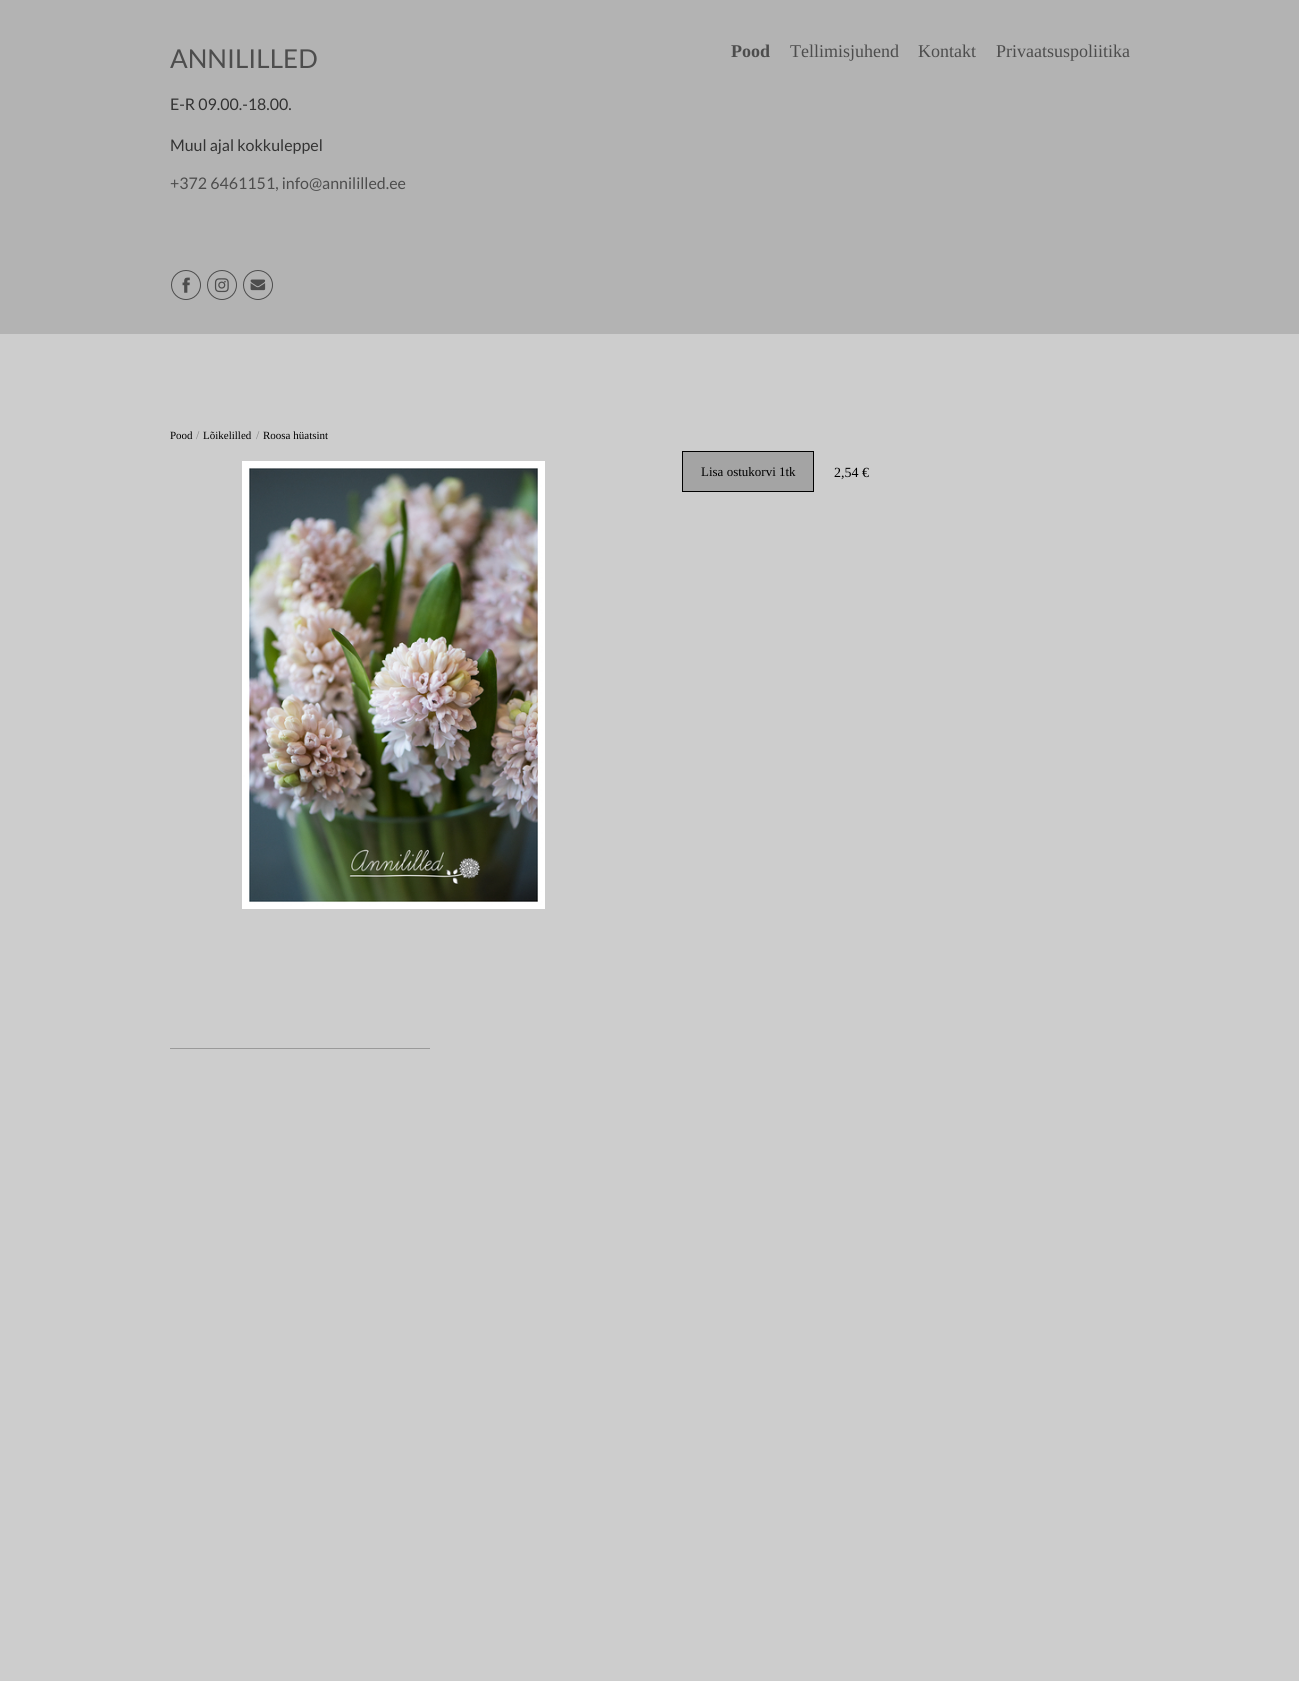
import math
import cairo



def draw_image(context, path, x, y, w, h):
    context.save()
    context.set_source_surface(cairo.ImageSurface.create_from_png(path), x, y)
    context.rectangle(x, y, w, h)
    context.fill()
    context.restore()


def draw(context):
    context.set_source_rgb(205 / 255, 205 / 255, 205 / 255)
    context.paint()
    context.set_source_rgb(179 / 255, 179 / 255, 179 / 255)
    context.rectangle(0, 0, 1299, 334)
    context.fill()
    draw_image(context, "images/1.png", 171, 270, 30, 30)
    draw_image(context, "images/2.png", 207, 270, 30, 30)
    draw_image(context, "images/3.png", 243, 270, 30, 30)
    draw_image(context, "images/4.png", 242, 461, 303, 448)
    context.set_source_rgb(164 / 255, 164 / 255, 164 / 255)
    context.rectangle(682.5, 451.5, 131, 40)
    context.fill_preserve()
    context.set_source_rgb(0, 0, 0)
    context.set_line_width(1)
    context.stroke()
    context.set_source_rgb(154 / 255, 154 / 255, 154 / 255)
    context.rectangle(170, 1048, 260, 1)
    context.fill()
    context.select_font_face("Lato")
    context.set_font_size(26)
    context.set_source_rgb(77 / 255, 77 / 255, 77 / 255)
    context.move_to(170, 68)
    context.show_text("ANNILILLED")
    context.set_font_size(16)
    context.set_source_rgb(51 / 255, 51 / 255, 51 / 255)
    context.move_to(170, 110)
    context.show_text("E-R 09.00.-18.00.")
    context.move_to(170, 151)
    context.show_text("Muul ajal kokkuleppel")
    context.set_source_rgb(77 / 255, 77 / 255, 77 / 255)
    context.move_to(170, 189)
    context.show_text("+372 6461151, info@annililled.ee")
    context.select_font_face("Liberation Serif", cairo.FontSlant.NORMAL, cairo.FontWeight.BOLD)
    context.set_font_size(18)
    context.move_to(731, 57)
    context.show_text("Pood")
    context.select_font_face("Liberation Serif")
    context.move_to(790, 57)
    context.show_text("Tellimisjuhend")
    context.move_to(918, 57)
    context.show_text("Kontakt")
    context.move_to(996, 57)
    context.show_text("Privaatsuspoliitika")
    context.set_font_size(11)
    context.set_source_rgb(0, 0, 0)
    context.move_to(170, 439)
    context.show_text("Pood")
    context.set_font_size(12)
    context.set_source_rgb(131 / 255, 131 / 255, 131 / 255)
    context.move_to(196, 439)
    context.show_text("/")
    context.set_font_size(11)
    context.set_source_rgb(0, 0, 0)
    context.move_to(203, 439)
    context.show_text("Lõikelilled")
    context.set_font_size(12)
    context.set_source_rgb(131 / 255, 131 / 255, 131 / 255)
    context.move_to(256, 439)
    context.show_text("/")
    context.set_font_size(11)
    context.set_source_rgb(0, 0, 0)
    context.move_to(263, 439)
    context.show_text("Roosa hüatsint")
    context.set_font_size(13)
    context.move_to(701, 476)
    context.show_text("Lisa ostukorvi 1tk")
    context.set_font_size(14)
    context.move_to(834, 477)
    context.show_text("2,54 €")


surface = cairo.ImageSurface(cairo.Format.RGB24, 1299, 1681)
context = cairo.Context(surface)
options = cairo.FontOptions()
options.set_hint_metrics(cairo.HintMetrics.OFF)
options.set_hint_style(cairo.HintStyle.NONE)
context.set_font_options(options)
context.set_miter_limit(4)
draw(context)
surface.write_to_png("out.png")
